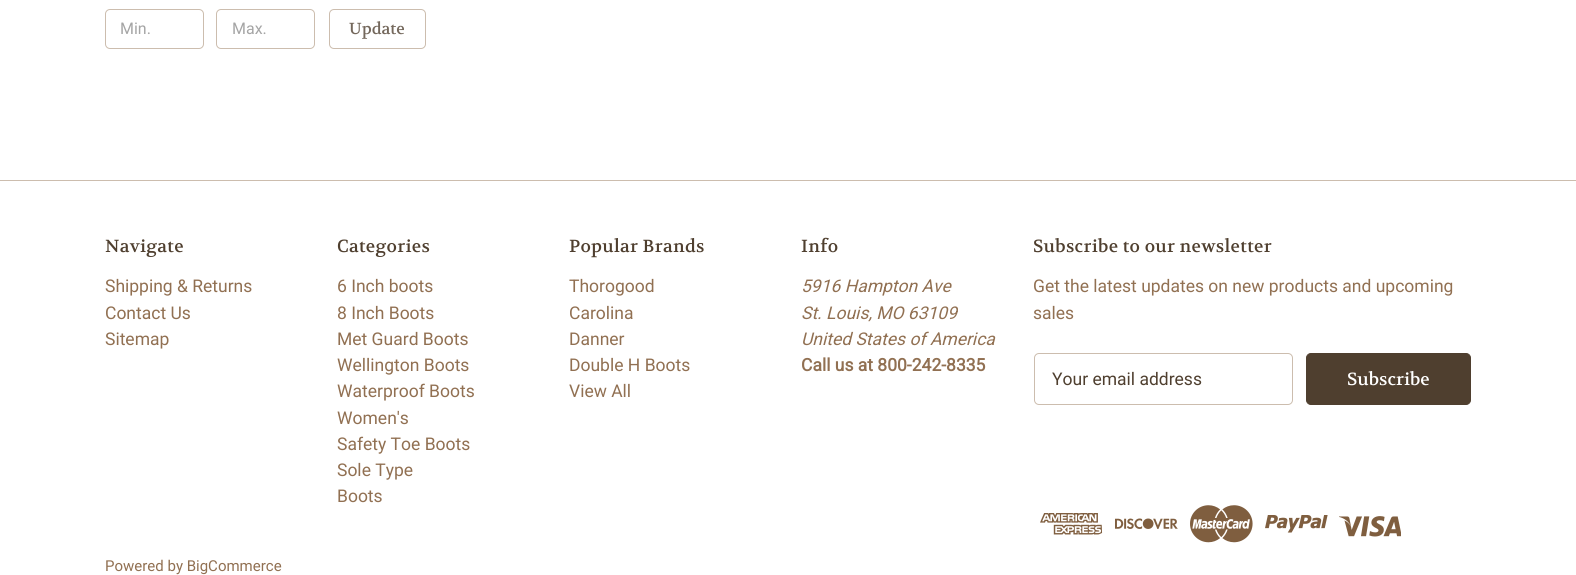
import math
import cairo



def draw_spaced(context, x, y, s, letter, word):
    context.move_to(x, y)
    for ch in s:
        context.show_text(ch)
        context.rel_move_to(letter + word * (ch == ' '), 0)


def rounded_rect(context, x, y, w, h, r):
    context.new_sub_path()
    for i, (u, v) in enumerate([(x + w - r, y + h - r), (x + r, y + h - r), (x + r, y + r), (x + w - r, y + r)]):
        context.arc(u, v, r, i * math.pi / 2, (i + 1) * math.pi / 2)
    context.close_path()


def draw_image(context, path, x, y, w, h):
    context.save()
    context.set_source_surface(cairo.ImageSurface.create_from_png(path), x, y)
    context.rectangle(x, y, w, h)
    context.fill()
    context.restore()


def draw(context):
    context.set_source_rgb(1, 1, 1)
    context.paint()
    rounded_rect(context, 105.5, 9.5, 98, 39, 4.5)
    context.set_source_rgb(204 / 255, 189 / 255, 174 / 255)
    context.set_line_width(1)
    context.stroke()
    rounded_rect(context, 216.5, 9.5, 98, 39, 4.5)
    context.stroke()
    rounded_rect(context, 329.5, 9.5, 96, 39, 4.5)
    context.stroke()
    context.rectangle(0, 180, 1576, 1)
    context.fill()
    rounded_rect(context, 1034.5, 353.5, 258, 51, 4.5)
    context.stroke()
    context.set_source_rgb(79 / 255, 63 / 255, 47 / 255)
    rounded_rect(context, 1306.5, 353.5, 164, 51, 4.5)
    context.fill_preserve()
    context.stroke()
    draw_image(context, "images/1.png", 1040, 513, 63, 22)
    draw_image(context, "images/2.png", 1115, 518, 63, 11)
    draw_image(context, "images/3.png", 1190, 505, 63, 38)
    draw_image(context, "images/4.png", 1265, 515, 63, 18)
    draw_image(context, "images/5.png", 1339, 516, 62, 21)
    context.select_font_face("Roboto")
    context.set_font_size(16)
    context.set_source_rgb(165 / 255, 165 / 255, 165 / 255)
    context.move_to(120, 34)
    context.show_text("Min.")
    context.move_to(232, 34)
    context.show_text("Max.")
    context.select_font_face("Volkhov")
    context.set_source_rgb(116 / 255, 104 / 255, 92 / 255)
    context.move_to(349, 34)
    context.show_text("Update")
    context.set_font_size(17.5)
    context.set_source_rgb(79 / 255, 63 / 255, 47 / 255)
    draw_spaced(context, 105, 252, "Navigate", 0.3, 0)
    context.select_font_face("Roboto")
    context.set_source_rgb(145 / 255, 112 / 255, 82 / 255)
    context.move_to(105, 292)
    context.show_text("Shipping & Returns")
    context.move_to(105, 319)
    context.show_text("Contact Us")
    context.move_to(105, 345)
    context.show_text("Sitemap")
    context.select_font_face("Volkhov")
    context.set_source_rgb(79 / 255, 63 / 255, 47 / 255)
    draw_spaced(context, 337, 252, "Categories", 0.3, 0)
    context.select_font_face("Roboto")
    context.set_source_rgb(145 / 255, 112 / 255, 82 / 255)
    context.move_to(337, 292)
    context.show_text("6 Inch boots")
    context.move_to(337, 319)
    context.show_text("8 Inch Boots")
    context.move_to(337, 345)
    context.show_text("Met Guard Boots")
    context.move_to(337, 371)
    context.show_text("Wellington Boots")
    context.move_to(337, 397)
    context.show_text("Waterproof Boots")
    context.move_to(337, 424)
    context.show_text("Women's")
    context.move_to(337, 450)
    context.show_text("Safety Toe Boots")
    context.move_to(337, 476)
    context.show_text("Sole Type")
    context.move_to(337, 502)
    context.show_text("Boots")
    context.select_font_face("Volkhov")
    context.set_source_rgb(79 / 255, 63 / 255, 47 / 255)
    draw_spaced(context, 569, 252, "Popular Brands", 0.3, 0)
    context.select_font_face("Roboto")
    context.set_source_rgb(145 / 255, 112 / 255, 82 / 255)
    context.move_to(569, 292)
    context.show_text("Thorogood")
    context.move_to(569, 319)
    context.show_text("Carolina")
    context.move_to(569, 345)
    context.show_text("Danner")
    context.move_to(569, 371)
    context.show_text("Double H Boots")
    context.move_to(569, 397)
    context.show_text("View All")
    context.select_font_face("Volkhov")
    context.set_source_rgb(79 / 255, 63 / 255, 47 / 255)
    draw_spaced(context, 801, 252, "Info", 0.3, 0)
    context.select_font_face("Roboto", cairo.FontSlant.ITALIC)
    context.set_source_rgb(145 / 255, 112 / 255, 82 / 255)
    context.move_to(801, 292)
    context.show_text("5916 Hampton Ave")
    context.move_to(801, 319)
    context.show_text("St. Louis, MO 63109")
    context.move_to(801, 345)
    context.show_text("United States of America")
    context.select_font_face("Roboto", cairo.FontSlant.NORMAL, cairo.FontWeight.BOLD)
    context.move_to(801, 371)
    context.show_text("Call us at 800-242-8335")
    context.select_font_face("Volkhov")
    context.set_source_rgb(79 / 255, 63 / 255, 47 / 255)
    draw_spaced(context, 1033, 252, "Subscribe to our newsletter", 0.3, 0)
    context.select_font_face("Roboto")
    context.set_source_rgb(145 / 255, 112 / 255, 82 / 255)
    context.move_to(1033, 292)
    context.show_text("Get the latest updates on new products and upcoming")
    context.move_to(1033, 319)
    context.show_text("sales")
    context.set_source_rgb(79 / 255, 63 / 255, 47 / 255)
    context.move_to(1052, 385)
    context.show_text("Your email address")
    context.select_font_face("Volkhov")
    context.set_source_rgb(1, 1, 1)
    context.move_to(1347, 385)
    context.show_text("Subscribe")
    context.select_font_face("Roboto")
    context.set_font_size(15)
    context.set_source_rgb(145 / 255, 112 / 255, 82 / 255)
    context.move_to(105, 571)
    context.show_text("Powered by BigCommerce")


surface = cairo.ImageSurface(cairo.Format.RGB24, 1576, 575)
context = cairo.Context(surface)
options = cairo.FontOptions()
options.set_hint_metrics(cairo.HintMetrics.OFF)
options.set_hint_style(cairo.HintStyle.NONE)
context.set_font_options(options)
context.set_miter_limit(4)
draw(context)
surface.write_to_png("out.png")
